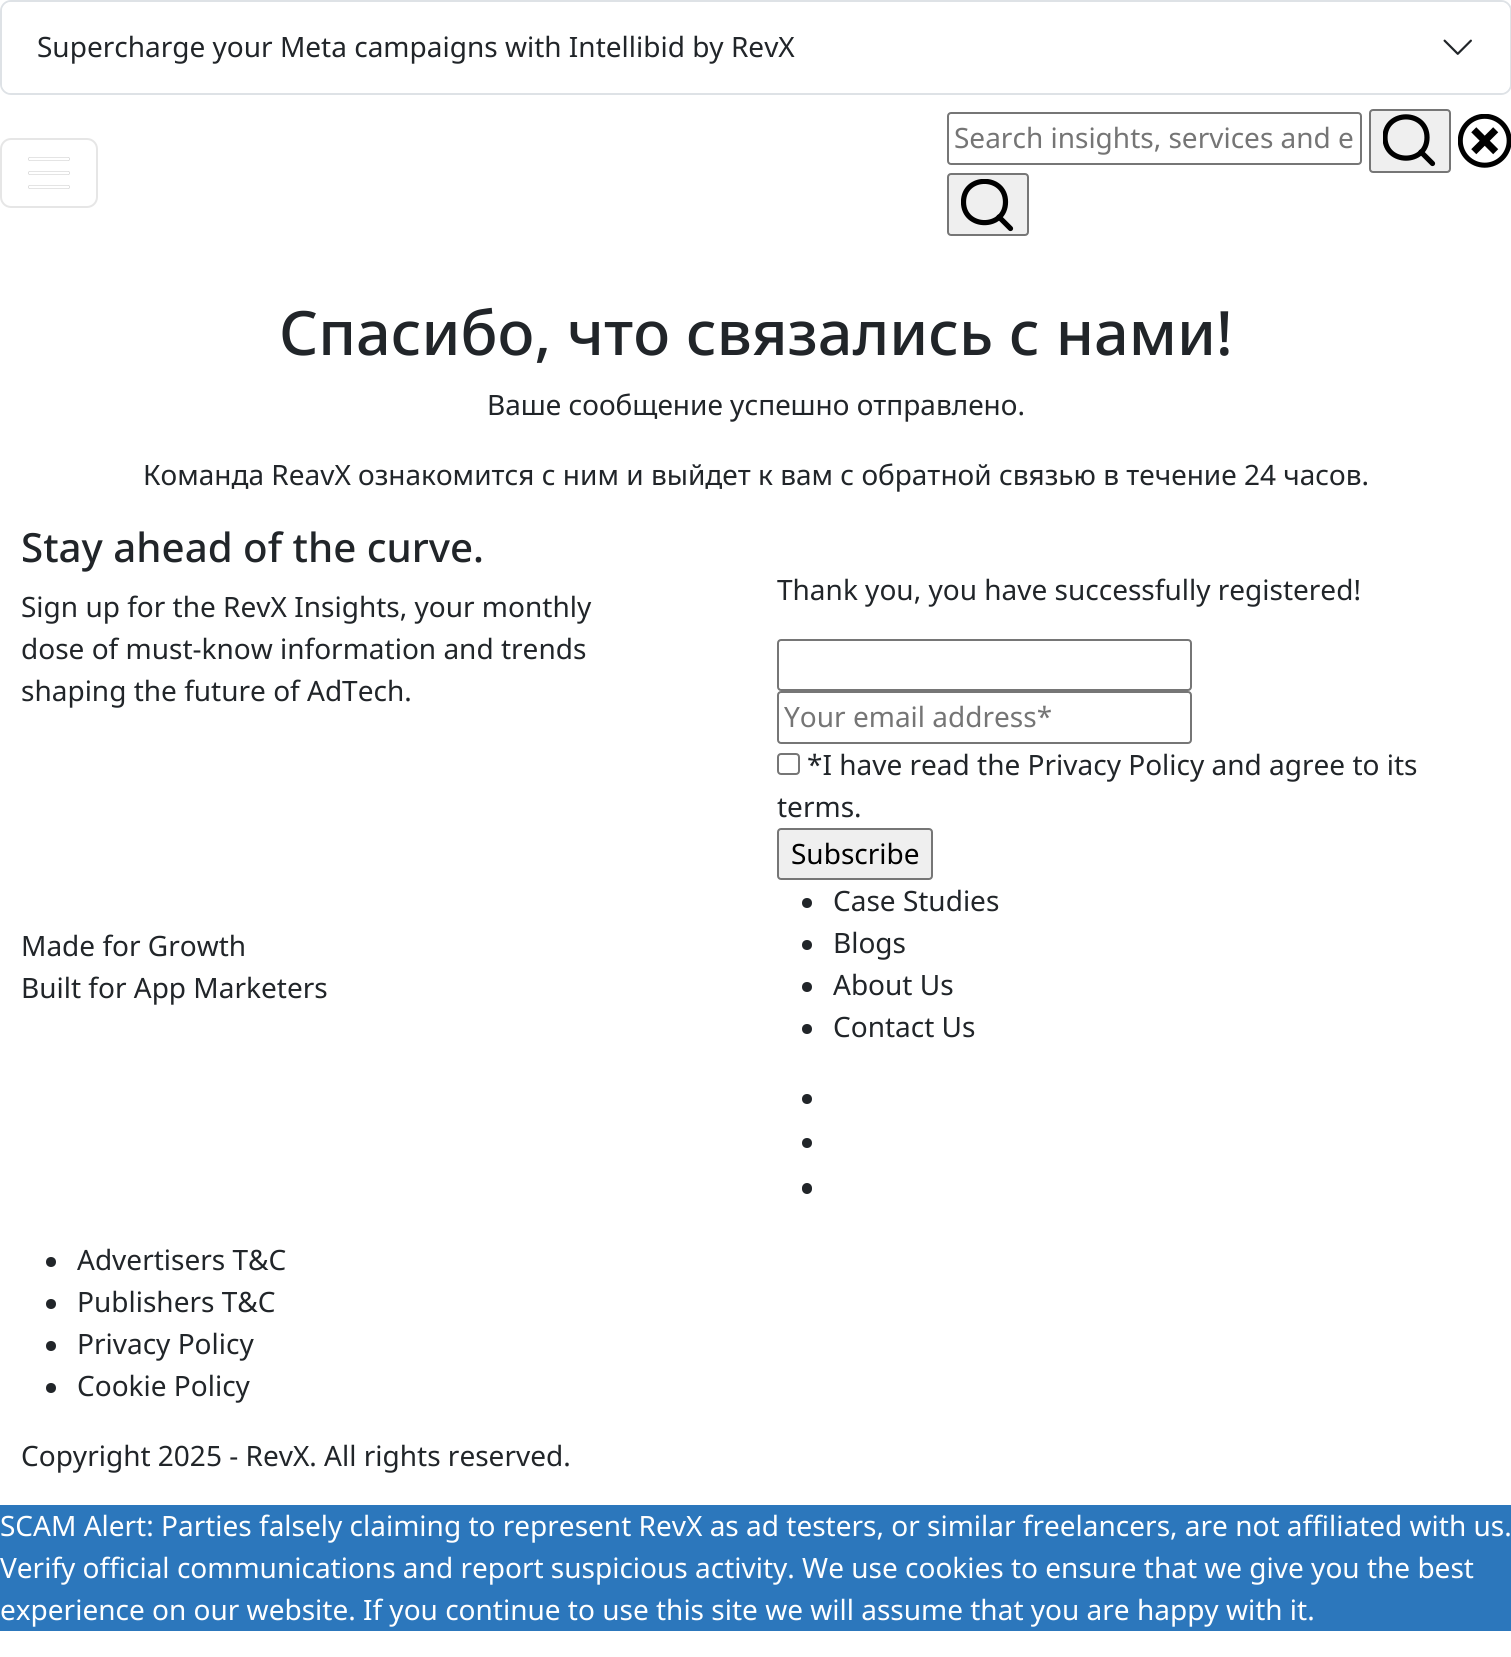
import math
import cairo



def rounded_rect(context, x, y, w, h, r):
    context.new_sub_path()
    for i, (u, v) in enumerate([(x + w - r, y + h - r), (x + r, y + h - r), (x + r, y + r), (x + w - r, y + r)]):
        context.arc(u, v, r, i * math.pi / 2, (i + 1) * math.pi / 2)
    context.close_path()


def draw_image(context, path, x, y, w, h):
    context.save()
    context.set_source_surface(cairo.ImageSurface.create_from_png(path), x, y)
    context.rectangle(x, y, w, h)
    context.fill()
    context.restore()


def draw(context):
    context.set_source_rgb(1, 1, 1)
    context.paint()
    rounded_rect(context, 1, 1, 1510, 93, 10)
    context.set_source_rgb(222 / 255, 226 / 255, 230 / 255)
    context.stroke()
    context.set_source_rgb(1, 1, 1)
    rounded_rect(context, 2, 2, 1508, 91, 9)
    context.fill()
    draw_image(context, "images/1.png", 1443, 39, 29, 16)
    rounded_rect(context, 1, 139, 96, 68, 10)
    context.set_source_rgb(230 / 255, 230 / 255, 230 / 255)
    context.stroke()
    context.new_path()
    context.move_to(30, 159)
    context.line_to(68, 159)
    context.move_to(30, 173)
    context.line_to(68, 173)
    context.move_to(30, 187)
    context.line_to(68, 187)
    context.set_source_rgb(115 / 255, 115 / 255, 115 / 255)
    context.set_line_width(3.5)
    context.set_line_cap(cairo.LineCap.ROUND)
    context.stroke()
    context.new_path()
    context.move_to(30, 159)
    context.line_to(68, 159)
    context.move_to(30, 173)
    context.line_to(68, 173)
    context.move_to(30, 187)
    context.line_to(68, 187)
    context.set_source_rgb(1, 1, 1)
    context.stroke()
    rounded_rect(context, 948, 113, 413, 51, 3)
    context.set_source_rgb(118 / 255, 118 / 255, 118 / 255)
    context.set_line_width(2)
    context.set_line_cap(cairo.LineCap.BUTT)
    context.stroke()
    context.set_source_rgb(239 / 255, 239 / 255, 239 / 255)
    rounded_rect(context, 1370, 110, 80, 62, 3)
    context.fill_preserve()
    context.set_source_rgb(118 / 255, 118 / 255, 118 / 255)
    context.stroke()
    context.save()
    context.rectangle(1383, 114, 54, 54)
    context.clip()
    context.new_path()
    context.move_to(1427, 137.5)
    context.curve_to(1427, 165, 1385, 165, 1385, 137.5)
    context.curve_to(1385, 110, 1427, 110, 1427, 137.5)
    context.close_path()
    context.set_source_rgb(0, 0, 0)
    context.set_line_width(5.2)
    context.set_line_cap(cairo.LineCap.ROUND)
    context.set_line_join(cairo.LineJoin.ROUND)
    context.stroke()
    context.restore()
    context.new_path()
    context.move_to(1432.5, 163.5)
    context.line_to(1421, 152)
    context.set_source_rgb(0, 0, 0)
    context.set_line_width(5.2)
    context.set_line_cap(cairo.LineCap.ROUND)
    context.set_line_join(cairo.LineJoin.ROUND)
    context.stroke()
    draw_image(context, "images/2.png", 1458, 114, 53, 54)
    context.set_source_rgb(239 / 255, 239 / 255, 239 / 255)
    rounded_rect(context, 948, 174, 80, 61, 3)
    context.fill_preserve()
    context.set_source_rgb(118 / 255, 118 / 255, 118 / 255)
    context.set_line_width(2)
    context.set_line_cap(cairo.LineCap.BUTT)
    context.set_line_join(cairo.LineJoin.MITER)
    context.stroke()
    context.save()
    context.rectangle(961, 179, 54, 52)
    context.clip()
    context.new_path()
    context.move_to(1005.5, 202)
    context.curve_to(1005.5, 229.5, 963.5, 229.5, 963.5, 202)
    context.curve_to(963.5, 174.5, 1005.5, 174.5, 1005.5, 202)
    context.close_path()
    context.set_source_rgb(0, 0, 0)
    context.set_line_width(5.2)
    context.set_line_cap(cairo.LineCap.ROUND)
    context.set_line_join(cairo.LineJoin.ROUND)
    context.stroke()
    context.restore()
    context.new_path()
    context.move_to(1010.5, 228.5)
    context.line_to(999, 217)
    context.set_source_rgb(0, 0, 0)
    context.set_line_width(5.2)
    context.set_line_cap(cairo.LineCap.ROUND)
    context.set_line_join(cairo.LineJoin.ROUND)
    context.stroke()
    rounded_rect(context, 778, 640, 413, 50, 3)
    context.set_source_rgb(118 / 255, 118 / 255, 118 / 255)
    context.set_line_width(2)
    context.set_line_cap(cairo.LineCap.BUTT)
    context.set_line_join(cairo.LineJoin.MITER)
    context.stroke()
    rounded_rect(context, 778, 692, 413, 51, 3)
    context.stroke()
    rounded_rect(context, 778, 754, 21, 20, 3)
    context.stroke()
    context.set_source_rgb(239 / 255, 239 / 255, 239 / 255)
    rounded_rect(context, 778, 829, 154, 50, 3)
    context.fill_preserve()
    context.set_source_rgb(118 / 255, 118 / 255, 118 / 255)
    context.stroke()
    context.set_source_rgb(33 / 255, 37 / 255, 41 / 255)
    context.arc(807, 903, 5, 0, 2 * math.pi)
    context.fill()
    context.arc(807, 945, 5, 0, 2 * math.pi)
    context.fill()
    context.arc(807, 987, 5, 0, 2 * math.pi)
    context.fill()
    context.arc(807, 1029, 5, 0, 2 * math.pi)
    context.fill()
    context.arc(807, 1099, 5, 0, 2 * math.pi)
    context.fill()
    context.arc(807, 1143, 5, 0, 2 * math.pi)
    context.fill()
    rounded_rect(context, 802, 1183, 10, 11, 5)
    context.fill()
    context.arc(51, 1262, 5, 0, 2 * math.pi)
    context.fill()
    context.arc(51, 1304, 5, 0, 2 * math.pi)
    context.fill()
    context.arc(51, 1346, 5, 0, 2 * math.pi)
    context.fill()
    context.arc(51, 1388, 5, 0, 2 * math.pi)
    context.fill()
    context.set_source_rgb(44 / 255, 119 / 255, 188 / 255)
    context.rectangle(0, 1505, 1511, 126)
    context.fill()
    context.select_font_face("Noto Sans")
    context.set_font_size(28)
    context.set_source_rgb(33 / 255, 37 / 255, 41 / 255)
    context.move_to(37, 57)
    context.show_text("Supercharge your Meta campaigns with Intellibid by RevX")
    context.set_source_rgb(117 / 255, 117 / 255, 117 / 255)
    context.move_to(954, 148)
    context.show_text("Search insights, services and e")
    context.select_font_face("Noto Sans Medium")
    context.set_font_size(61.2)
    context.set_source_rgb(33 / 255, 37 / 255, 41 / 255)
    context.move_to(279, 355)
    context.show_text("Спасибо, что связались с нами!")
    context.select_font_face("Noto Sans")
    context.set_font_size(28)
    context.move_to(487, 415)
    context.show_text("Ваше сообщение успешно отправлено.")
    context.move_to(143, 485)
    context.show_text("Команда ReavX ознакомится с ним и выйдет к вам с обратной связью в течение 24 часов.")
    context.select_font_face("Noto Sans Medium")
    context.set_font_size(40.25)
    context.move_to(21, 562)
    context.show_text("Stay ahead of the curve.")
    context.select_font_face("Noto Sans")
    context.set_font_size(28)
    context.move_to(21, 617)
    context.show_text("Sign up for the RevX Insights, your monthly")
    context.move_to(21, 659)
    context.show_text("dose of must-know information and trends")
    context.move_to(21, 701)
    context.show_text("shaping the future of AdTech.")
    context.move_to(777, 600)
    context.show_text("Thank you, you have successfully registered!")
    context.set_source_rgb(117 / 255, 117 / 255, 117 / 255)
    context.move_to(784, 727)
    context.show_text("Your email address*")
    context.set_source_rgb(33 / 255, 37 / 255, 41 / 255)
    context.move_to(807, 775)
    context.show_text("*I have read the Privacy Policy and agree to its")
    context.move_to(777, 817)
    context.show_text("terms.")
    context.set_source_rgb(0, 0, 0)
    context.move_to(791, 864)
    context.show_text("Subscribe")
    context.set_source_rgb(33 / 255, 37 / 255, 41 / 255)
    context.move_to(21, 956)
    context.show_text("Made for Growth")
    context.move_to(21, 998)
    context.show_text("Built for App Marketers")
    context.move_to(833, 911)
    context.show_text("Case Studies")
    context.move_to(833, 953)
    context.show_text("Blogs")
    context.move_to(833, 995)
    context.show_text("About Us")
    context.move_to(833, 1037)
    context.show_text("Contact Us")
    context.move_to(77, 1270)
    context.show_text("Advertisers T&C")
    context.move_to(77, 1312)
    context.show_text("Publishers T&C")
    context.move_to(77, 1354)
    context.show_text("Privacy Policy")
    context.move_to(77, 1396)
    context.show_text("Cookie Policy")
    context.move_to(21, 1466)
    context.show_text("Copyright 2025 - RevX. All rights reserved.")
    context.set_source_rgb(1, 1, 1)
    context.move_to(0, 1536)
    context.show_text("SCAM Alert: Parties falsely claiming to represent RevX as ad testers, or similar freelancers, are not affiliated with us.")
    context.move_to(0, 1578)
    context.show_text("Verify official communications and report suspicious activity. We use cookies to ensure that we give you the best")
    context.move_to(0, 1620)
    context.show_text("experience on our website. If you continue to use this site we will assume that you are happy with it.")


surface = cairo.ImageSurface(cairo.Format.RGB24, 1511, 1657)
context = cairo.Context(surface)
options = cairo.FontOptions()
options.set_hint_metrics(cairo.HintMetrics.OFF)
options.set_hint_style(cairo.HintStyle.NONE)
context.set_font_options(options)
context.set_miter_limit(4)
draw(context)
surface.write_to_png("out.png")
